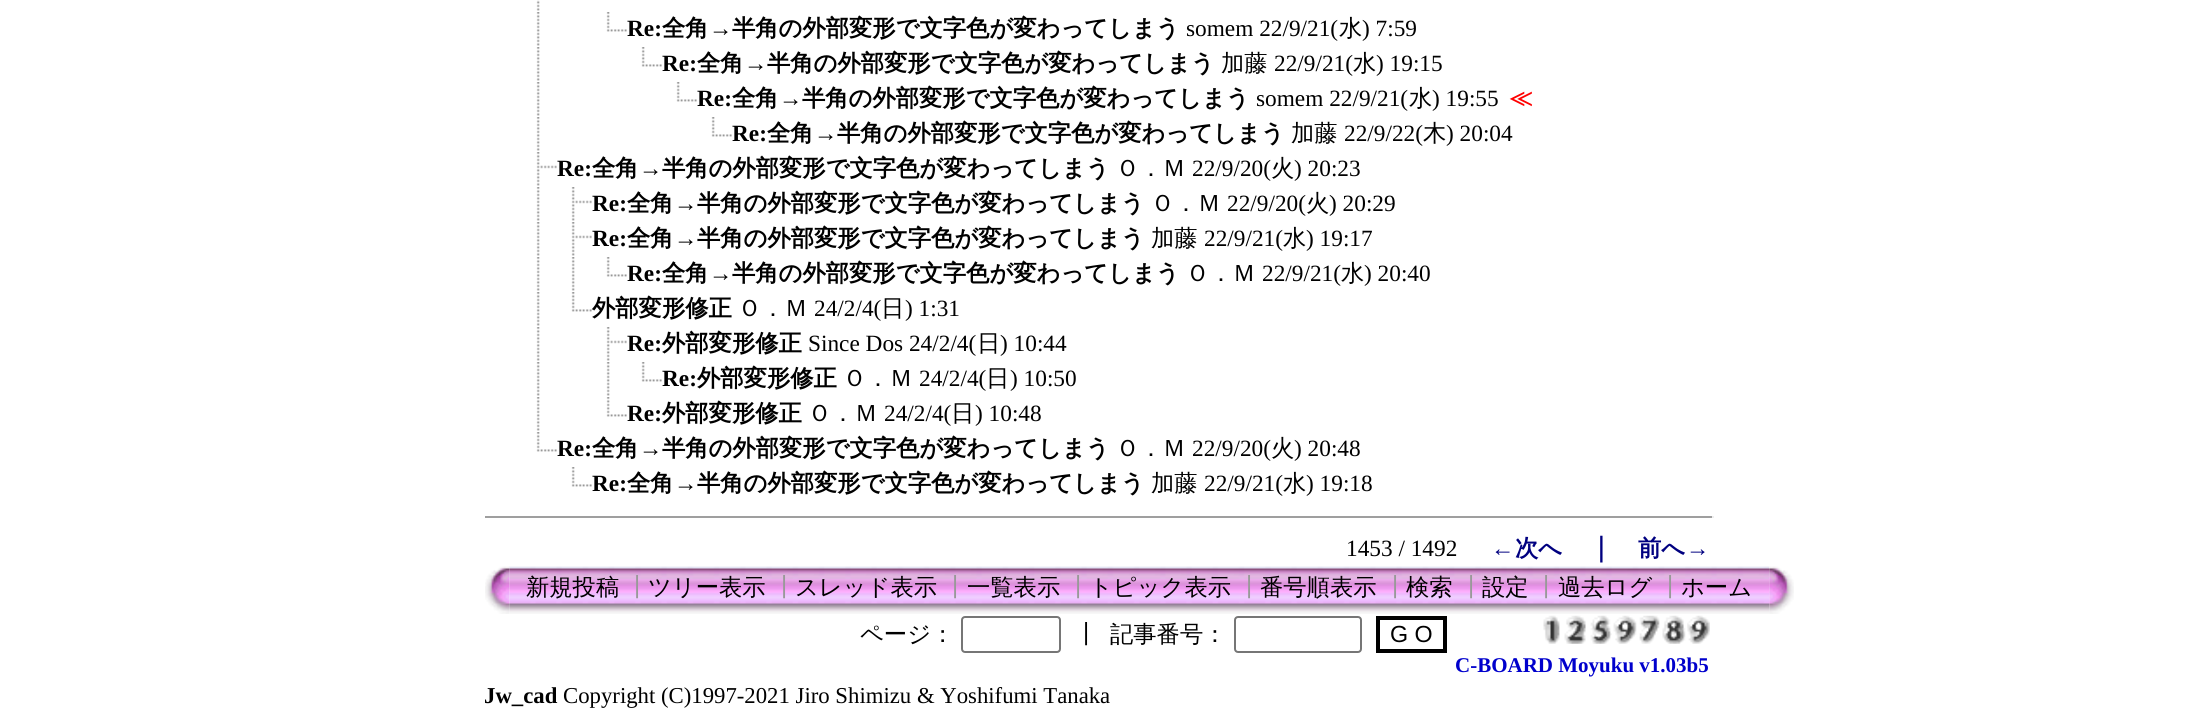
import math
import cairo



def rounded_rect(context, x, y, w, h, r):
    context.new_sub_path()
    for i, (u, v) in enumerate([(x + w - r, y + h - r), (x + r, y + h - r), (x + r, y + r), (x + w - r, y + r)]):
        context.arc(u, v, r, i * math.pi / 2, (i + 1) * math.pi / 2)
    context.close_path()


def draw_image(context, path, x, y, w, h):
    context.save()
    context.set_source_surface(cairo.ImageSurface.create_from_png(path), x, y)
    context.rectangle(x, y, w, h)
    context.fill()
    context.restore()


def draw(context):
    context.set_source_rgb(1, 1, 1)
    context.paint()
    draw_image(context, "images/1.png", 536, 0, 4, 11)
    draw_image(context, "images/2.png", 536, 12, 4, 34)
    draw_image(context, "images/3.png", 606, 12, 21, 20)
    draw_image(context, "images/2.png", 536, 47, 4, 34)
    draw_image(context, "images/3.png", 641, 47, 21, 20)
    draw_image(context, "images/2.png", 536, 82, 4, 34)
    draw_image(context, "images/3.png", 676, 82, 21, 20)
    draw_image(context, "images/2.png", 536, 117, 4, 34)
    draw_image(context, "images/3.png", 711, 117, 21, 20)
    draw_image(context, "images/4.png", 536, 152, 21, 34)
    draw_image(context, "images/2.png", 536, 187, 4, 34)
    draw_image(context, "images/4.png", 571, 187, 21, 34)
    draw_image(context, "images/2.png", 536, 222, 4, 34)
    draw_image(context, "images/4.png", 571, 222, 21, 34)
    draw_image(context, "images/2.png", 536, 257, 4, 34)
    draw_image(context, "images/2.png", 571, 257, 4, 34)
    draw_image(context, "images/3.png", 606, 257, 21, 20)
    draw_image(context, "images/2.png", 536, 292, 4, 34)
    draw_image(context, "images/3.png", 571, 292, 21, 20)
    draw_image(context, "images/2.png", 536, 327, 4, 34)
    draw_image(context, "images/4.png", 606, 327, 21, 34)
    draw_image(context, "images/2.png", 536, 362, 4, 34)
    draw_image(context, "images/2.png", 606, 362, 4, 34)
    draw_image(context, "images/3.png", 641, 362, 21, 20)
    draw_image(context, "images/2.png", 536, 397, 4, 34)
    draw_image(context, "images/3.png", 606, 397, 21, 20)
    draw_image(context, "images/3.png", 536, 432, 21, 20)
    draw_image(context, "images/3.png", 571, 467, 21, 20)
    context.set_source_rgb(159 / 255, 159 / 255, 159 / 255)
    context.rectangle(485, 516, 1228, 2)
    context.fill()
    context.set_source_rgb(238 / 255, 238 / 255, 238 / 255)
    context.rectangle(1712, 516, 2, 2)
    context.fill()
    draw_image(context, "images/6.png", 509, 566, 1261, 48)
    draw_image(context, "images/5.png", 485, 566, 25, 48)
    draw_image(context, "images/7.png", 1769, 566, 25, 48)
    rounded_rect(context, 962, 617, 98, 35, 3)
    context.set_source_rgb(118 / 255, 118 / 255, 118 / 255)
    context.stroke()
    rounded_rect(context, 1235, 617, 126, 35, 3)
    context.stroke()
    context.rectangle(1378, 618, 67, 33)
    context.set_source_rgb(0, 0, 0)
    context.set_line_width(4)
    context.stroke()
    draw_image(context, "images/8.png", 1543, 615, 17, 29)
    draw_image(context, "images/9.png", 1564, 615, 22, 29)
    draw_image(context, "images/10.png", 1590, 615, 22, 29)
    draw_image(context, "images/11.png", 1613, 615, 24, 29)
    draw_image(context, "images/12.png", 1639, 615, 21, 29)
    draw_image(context, "images/13.png", 1662, 615, 24, 29)
    draw_image(context, "images/14.png", 1687, 615, 23, 29)
    context.select_font_face("Liberation Serif", cairo.FontSlant.NORMAL, cairo.FontWeight.BOLD)
    context.set_font_size(23.3)
    context.move_to(627, 36)
    context.show_text("Re:")
    context.select_font_face("WenQuanYi Zen Hei", cairo.FontSlant.NORMAL, cairo.FontWeight.BOLD)
    context.move_to(662, 36)
    context.show_text("全角")
    context.select_font_face("Liberation Serif", cairo.FontSlant.NORMAL, cairo.FontWeight.BOLD)
    context.move_to(709, 36)
    context.show_text("→")
    context.select_font_face("WenQuanYi Zen Hei", cairo.FontSlant.NORMAL, cairo.FontWeight.BOLD)
    context.move_to(732, 36)
    context.show_text("半角の外部変形で文字色が変わってしまう")
    context.select_font_face("Liberation Serif")
    context.move_to(1186, 36)
    context.show_text("somem 22/9/21(")
    context.select_font_face("WenQuanYi Zen Hei Medium")
    context.move_to(1339, 36)
    context.show_text("水")
    context.select_font_face("Liberation Serif")
    context.move_to(1362, 36)
    context.show_text(") 7:59")
    context.select_font_face("Liberation Serif", cairo.FontSlant.NORMAL, cairo.FontWeight.BOLD)
    context.move_to(662, 71)
    context.show_text("Re:")
    context.select_font_face("WenQuanYi Zen Hei", cairo.FontSlant.NORMAL, cairo.FontWeight.BOLD)
    context.move_to(697, 71)
    context.show_text("全角")
    context.select_font_face("Liberation Serif", cairo.FontSlant.NORMAL, cairo.FontWeight.BOLD)
    context.move_to(744, 71)
    context.show_text("→")
    context.select_font_face("WenQuanYi Zen Hei", cairo.FontSlant.NORMAL, cairo.FontWeight.BOLD)
    context.move_to(767, 71)
    context.show_text("半角の外部変形で文字色が変わってしまう")
    context.select_font_face("WenQuanYi Zen Hei Medium")
    context.move_to(1221, 71)
    context.show_text("加藤")
    context.select_font_face("Liberation Serif")
    context.move_to(1274, 71)
    context.show_text("22/9/21(")
    context.select_font_face("WenQuanYi Zen Hei Medium")
    context.move_to(1353, 71)
    context.show_text("水")
    context.select_font_face("Liberation Serif")
    context.move_to(1376, 71)
    context.show_text(") 19:15")
    context.select_font_face("Liberation Serif", cairo.FontSlant.NORMAL, cairo.FontWeight.BOLD)
    context.move_to(697, 106)
    context.show_text("Re:")
    context.select_font_face("WenQuanYi Zen Hei", cairo.FontSlant.NORMAL, cairo.FontWeight.BOLD)
    context.move_to(732, 106)
    context.show_text("全角")
    context.select_font_face("Liberation Serif", cairo.FontSlant.NORMAL, cairo.FontWeight.BOLD)
    context.move_to(779, 106)
    context.show_text("→")
    context.select_font_face("WenQuanYi Zen Hei", cairo.FontSlant.NORMAL, cairo.FontWeight.BOLD)
    context.move_to(802, 106)
    context.show_text("半角の外部変形で文字色が変わってしまう")
    context.select_font_face("Liberation Serif")
    context.move_to(1256, 106)
    context.show_text("somem 22/9/21(")
    context.select_font_face("WenQuanYi Zen Hei Medium")
    context.move_to(1409, 106)
    context.show_text("水")
    context.select_font_face("Liberation Serif")
    context.move_to(1432, 106)
    context.show_text(") 19:55")
    context.select_font_face("WenQuanYi Zen Hei", cairo.FontSlant.NORMAL, cairo.FontWeight.BOLD)
    context.set_source_rgb(1, 0, 0)
    context.move_to(1509, 106)
    context.show_text("≪")
    context.select_font_face("Liberation Serif", cairo.FontSlant.NORMAL, cairo.FontWeight.BOLD)
    context.set_source_rgb(0, 0, 0)
    context.move_to(732, 141)
    context.show_text("Re:")
    context.select_font_face("WenQuanYi Zen Hei", cairo.FontSlant.NORMAL, cairo.FontWeight.BOLD)
    context.move_to(767, 141)
    context.show_text("全角")
    context.select_font_face("Liberation Serif", cairo.FontSlant.NORMAL, cairo.FontWeight.BOLD)
    context.move_to(814, 141)
    context.show_text("→")
    context.select_font_face("WenQuanYi Zen Hei", cairo.FontSlant.NORMAL, cairo.FontWeight.BOLD)
    context.move_to(837, 141)
    context.show_text("半角の外部変形で文字色が変わってしまう")
    context.select_font_face("WenQuanYi Zen Hei Medium")
    context.move_to(1291, 141)
    context.show_text("加藤")
    context.select_font_face("Liberation Serif")
    context.move_to(1344, 141)
    context.show_text("22/9/22(")
    context.select_font_face("WenQuanYi Zen Hei Medium")
    context.move_to(1423, 141)
    context.show_text("木")
    context.select_font_face("Liberation Serif")
    context.move_to(1446, 141)
    context.show_text(") 20:04")
    context.select_font_face("Liberation Serif", cairo.FontSlant.NORMAL, cairo.FontWeight.BOLD)
    context.move_to(557, 176)
    context.show_text("Re:")
    context.select_font_face("WenQuanYi Zen Hei", cairo.FontSlant.NORMAL, cairo.FontWeight.BOLD)
    context.move_to(592, 176)
    context.show_text("全角")
    context.select_font_face("Liberation Serif", cairo.FontSlant.NORMAL, cairo.FontWeight.BOLD)
    context.move_to(639, 176)
    context.show_text("→")
    context.select_font_face("WenQuanYi Zen Hei", cairo.FontSlant.NORMAL, cairo.FontWeight.BOLD)
    context.move_to(662, 176)
    context.show_text("半角の外部変形で文字色が変わってしまう")
    context.select_font_face("WenQuanYi Zen Hei Medium")
    context.move_to(1116, 176)
    context.show_text("Ｏ．Ｍ")
    context.select_font_face("Liberation Serif")
    context.move_to(1192, 176)
    context.show_text("22/9/20(")
    context.select_font_face("WenQuanYi Zen Hei Medium")
    context.move_to(1271, 176)
    context.show_text("火")
    context.select_font_face("Liberation Serif")
    context.move_to(1294, 176)
    context.show_text(") 20:23")
    context.select_font_face("Liberation Serif", cairo.FontSlant.NORMAL, cairo.FontWeight.BOLD)
    context.move_to(592, 211)
    context.show_text("Re:")
    context.select_font_face("WenQuanYi Zen Hei", cairo.FontSlant.NORMAL, cairo.FontWeight.BOLD)
    context.move_to(627, 211)
    context.show_text("全角")
    context.select_font_face("Liberation Serif", cairo.FontSlant.NORMAL, cairo.FontWeight.BOLD)
    context.move_to(674, 211)
    context.show_text("→")
    context.select_font_face("WenQuanYi Zen Hei", cairo.FontSlant.NORMAL, cairo.FontWeight.BOLD)
    context.move_to(697, 211)
    context.show_text("半角の外部変形で文字色が変わってしまう")
    context.select_font_face("WenQuanYi Zen Hei Medium")
    context.move_to(1151, 211)
    context.show_text("Ｏ．Ｍ")
    context.select_font_face("Liberation Serif")
    context.move_to(1227, 211)
    context.show_text("22/9/20(")
    context.select_font_face("WenQuanYi Zen Hei Medium")
    context.move_to(1306, 211)
    context.show_text("火")
    context.select_font_face("Liberation Serif")
    context.move_to(1329, 211)
    context.show_text(") 20:29")
    context.select_font_face("Liberation Serif", cairo.FontSlant.NORMAL, cairo.FontWeight.BOLD)
    context.move_to(592, 246)
    context.show_text("Re:")
    context.select_font_face("WenQuanYi Zen Hei", cairo.FontSlant.NORMAL, cairo.FontWeight.BOLD)
    context.move_to(627, 246)
    context.show_text("全角")
    context.select_font_face("Liberation Serif", cairo.FontSlant.NORMAL, cairo.FontWeight.BOLD)
    context.move_to(674, 246)
    context.show_text("→")
    context.select_font_face("WenQuanYi Zen Hei", cairo.FontSlant.NORMAL, cairo.FontWeight.BOLD)
    context.move_to(697, 246)
    context.show_text("半角の外部変形で文字色が変わってしまう")
    context.select_font_face("WenQuanYi Zen Hei Medium")
    context.move_to(1151, 246)
    context.show_text("加藤")
    context.select_font_face("Liberation Serif")
    context.move_to(1204, 246)
    context.show_text("22/9/21(")
    context.select_font_face("WenQuanYi Zen Hei Medium")
    context.move_to(1283, 246)
    context.show_text("水")
    context.select_font_face("Liberation Serif")
    context.move_to(1306, 246)
    context.show_text(") 19:17")
    context.select_font_face("Liberation Serif", cairo.FontSlant.NORMAL, cairo.FontWeight.BOLD)
    context.move_to(627, 281)
    context.show_text("Re:")
    context.select_font_face("WenQuanYi Zen Hei", cairo.FontSlant.NORMAL, cairo.FontWeight.BOLD)
    context.move_to(662, 281)
    context.show_text("全角")
    context.select_font_face("Liberation Serif", cairo.FontSlant.NORMAL, cairo.FontWeight.BOLD)
    context.move_to(709, 281)
    context.show_text("→")
    context.select_font_face("WenQuanYi Zen Hei", cairo.FontSlant.NORMAL, cairo.FontWeight.BOLD)
    context.move_to(732, 281)
    context.show_text("半角の外部変形で文字色が変わってしまう")
    context.select_font_face("WenQuanYi Zen Hei Medium")
    context.move_to(1186, 281)
    context.show_text("Ｏ．Ｍ")
    context.select_font_face("Liberation Serif")
    context.move_to(1262, 281)
    context.show_text("22/9/21(")
    context.select_font_face("WenQuanYi Zen Hei Medium")
    context.move_to(1341, 281)
    context.show_text("水")
    context.select_font_face("Liberation Serif")
    context.move_to(1364, 281)
    context.show_text(") 20:40")
    context.select_font_face("WenQuanYi Zen Hei", cairo.FontSlant.NORMAL, cairo.FontWeight.BOLD)
    context.move_to(592, 316)
    context.show_text("外部変形修正")
    context.select_font_face("WenQuanYi Zen Hei Medium")
    context.move_to(738, 316)
    context.show_text("Ｏ．Ｍ")
    context.select_font_face("Liberation Serif")
    context.move_to(814, 316)
    context.show_text("24/2/4(")
    context.select_font_face("WenQuanYi Zen Hei Medium")
    context.move_to(881, 316)
    context.show_text("日")
    context.select_font_face("Liberation Serif")
    context.move_to(905, 316)
    context.show_text(") 1:31")
    context.select_font_face("Liberation Serif", cairo.FontSlant.NORMAL, cairo.FontWeight.BOLD)
    context.move_to(627, 351)
    context.show_text("Re:")
    context.select_font_face("WenQuanYi Zen Hei", cairo.FontSlant.NORMAL, cairo.FontWeight.BOLD)
    context.move_to(662, 351)
    context.show_text("外部変形修正")
    context.select_font_face("Liberation Serif")
    context.move_to(808, 351)
    context.show_text("Since Dos 24/2/4(")
    context.select_font_face("WenQuanYi Zen Hei Medium")
    context.move_to(977, 351)
    context.show_text("日")
    context.select_font_face("Liberation Serif")
    context.move_to(1000, 351)
    context.show_text(") 10:44")
    context.select_font_face("Liberation Serif", cairo.FontSlant.NORMAL, cairo.FontWeight.BOLD)
    context.move_to(662, 386)
    context.show_text("Re:")
    context.select_font_face("WenQuanYi Zen Hei", cairo.FontSlant.NORMAL, cairo.FontWeight.BOLD)
    context.move_to(697, 386)
    context.show_text("外部変形修正")
    context.select_font_face("WenQuanYi Zen Hei Medium")
    context.move_to(843, 386)
    context.show_text("Ｏ．Ｍ")
    context.select_font_face("Liberation Serif")
    context.move_to(919, 386)
    context.show_text("24/2/4(")
    context.select_font_face("WenQuanYi Zen Hei Medium")
    context.move_to(986, 386)
    context.show_text("日")
    context.select_font_face("Liberation Serif")
    context.move_to(1010, 386)
    context.show_text(") 10:50")
    context.select_font_face("Liberation Serif", cairo.FontSlant.NORMAL, cairo.FontWeight.BOLD)
    context.move_to(627, 421)
    context.show_text("Re:")
    context.select_font_face("WenQuanYi Zen Hei", cairo.FontSlant.NORMAL, cairo.FontWeight.BOLD)
    context.move_to(662, 421)
    context.show_text("外部変形修正")
    context.select_font_face("WenQuanYi Zen Hei Medium")
    context.move_to(808, 421)
    context.show_text("Ｏ．Ｍ")
    context.select_font_face("Liberation Serif")
    context.move_to(884, 421)
    context.show_text("24/2/4(")
    context.select_font_face("WenQuanYi Zen Hei Medium")
    context.move_to(951, 421)
    context.show_text("日")
    context.select_font_face("Liberation Serif")
    context.move_to(975, 421)
    context.show_text(") 10:48")
    context.select_font_face("Liberation Serif", cairo.FontSlant.NORMAL, cairo.FontWeight.BOLD)
    context.move_to(557, 456)
    context.show_text("Re:")
    context.select_font_face("WenQuanYi Zen Hei", cairo.FontSlant.NORMAL, cairo.FontWeight.BOLD)
    context.move_to(592, 456)
    context.show_text("全角")
    context.select_font_face("Liberation Serif", cairo.FontSlant.NORMAL, cairo.FontWeight.BOLD)
    context.move_to(639, 456)
    context.show_text("→")
    context.select_font_face("WenQuanYi Zen Hei", cairo.FontSlant.NORMAL, cairo.FontWeight.BOLD)
    context.move_to(662, 456)
    context.show_text("半角の外部変形で文字色が変わってしまう")
    context.select_font_face("WenQuanYi Zen Hei Medium")
    context.move_to(1116, 456)
    context.show_text("Ｏ．Ｍ")
    context.select_font_face("Liberation Serif")
    context.move_to(1192, 456)
    context.show_text("22/9/20(")
    context.select_font_face("WenQuanYi Zen Hei Medium")
    context.move_to(1271, 456)
    context.show_text("火")
    context.select_font_face("Liberation Serif")
    context.move_to(1294, 456)
    context.show_text(") 20:48")
    context.select_font_face("Liberation Serif", cairo.FontSlant.NORMAL, cairo.FontWeight.BOLD)
    context.move_to(592, 491)
    context.show_text("Re:")
    context.select_font_face("WenQuanYi Zen Hei", cairo.FontSlant.NORMAL, cairo.FontWeight.BOLD)
    context.move_to(627, 491)
    context.show_text("全角")
    context.select_font_face("Liberation Serif", cairo.FontSlant.NORMAL, cairo.FontWeight.BOLD)
    context.move_to(674, 491)
    context.show_text("→")
    context.select_font_face("WenQuanYi Zen Hei", cairo.FontSlant.NORMAL, cairo.FontWeight.BOLD)
    context.move_to(697, 491)
    context.show_text("半角の外部変形で文字色が変わってしまう")
    context.select_font_face("WenQuanYi Zen Hei Medium")
    context.move_to(1151, 491)
    context.show_text("加藤")
    context.select_font_face("Liberation Serif")
    context.move_to(1204, 491)
    context.show_text("22/9/21(")
    context.select_font_face("WenQuanYi Zen Hei Medium")
    context.move_to(1283, 491)
    context.show_text("水")
    context.select_font_face("Liberation Serif")
    context.move_to(1306, 491)
    context.show_text(") 19:18")
    context.move_to(1346, 556)
    context.show_text("1453 / 1492")
    context.select_font_face("Liberation Serif", cairo.FontSlant.NORMAL, cairo.FontWeight.BOLD)
    context.set_source_rgb(0, 0, 128 / 255)
    context.move_to(1491, 556)
    context.show_text("←")
    context.select_font_face("WenQuanYi Zen Hei", cairo.FontSlant.NORMAL, cairo.FontWeight.BOLD)
    context.move_to(1515, 556)
    context.show_text("次へ")
    context.set_font_size(26)
    context.move_to(1588, 556)
    context.show_text("｜")
    context.set_font_size(23.3)
    context.move_to(1638, 556)
    context.show_text("前へ")
    context.select_font_face("Liberation Serif", cairo.FontSlant.NORMAL, cairo.FontWeight.BOLD)
    context.move_to(1686, 556)
    context.show_text("→")
    context.select_font_face("WenQuanYi Zen Hei Medium")
    context.set_source_rgb(0, 0, 0)
    context.move_to(526, 595)
    context.show_text("新規投稿")
    context.set_source_rgb(153 / 255, 153 / 255, 153 / 255)
    context.move_to(625, 595)
    context.show_text("┃")
    context.set_source_rgb(0, 0, 0)
    context.move_to(648, 595)
    context.show_text("ツリー表示")
    context.set_source_rgb(153 / 255, 153 / 255, 153 / 255)
    context.move_to(772, 595)
    context.show_text("┃")
    context.set_source_rgb(0, 0, 0)
    context.move_to(795, 595)
    context.show_text("スレッド表示")
    context.set_source_rgb(153 / 255, 153 / 255, 153 / 255)
    context.move_to(943, 595)
    context.show_text("┃")
    context.set_source_rgb(0, 0, 0)
    context.move_to(967, 595)
    context.show_text("一覧表示")
    context.set_source_rgb(153 / 255, 153 / 255, 153 / 255)
    context.move_to(1066, 595)
    context.show_text("┃")
    context.set_source_rgb(0, 0, 0)
    context.move_to(1089, 595)
    context.show_text("トピック表示")
    context.set_source_rgb(153 / 255, 153 / 255, 153 / 255)
    context.move_to(1237, 595)
    context.show_text("┃")
    context.set_source_rgb(0, 0, 0)
    context.move_to(1260, 595)
    context.show_text("番号順表示")
    context.set_source_rgb(153 / 255, 153 / 255, 153 / 255)
    context.move_to(1383, 595)
    context.show_text("┃")
    context.set_source_rgb(0, 0, 0)
    context.move_to(1406, 595)
    context.show_text("検索")
    context.set_source_rgb(153 / 255, 153 / 255, 153 / 255)
    context.move_to(1459, 595)
    context.show_text("┃")
    context.set_source_rgb(0, 0, 0)
    context.move_to(1482, 595)
    context.show_text("設定")
    context.set_source_rgb(153 / 255, 153 / 255, 153 / 255)
    context.move_to(1534, 595)
    context.show_text("┃")
    context.set_source_rgb(0, 0, 0)
    context.move_to(1558, 595)
    context.show_text("過去ログ")
    context.set_source_rgb(153 / 255, 153 / 255, 153 / 255)
    context.move_to(1658, 595)
    context.show_text("┃")
    context.set_source_rgb(0, 0, 0)
    context.move_to(1681, 595)
    context.show_text("ホーム")
    context.move_to(860, 642)
    context.show_text("ページ：")
    context.move_to(1074, 642)
    context.show_text("┃")
    context.move_to(1110, 642)
    context.show_text("記事番号：")
    context.select_font_face("Liberation Sans")
    context.move_to(1390, 642)
    context.show_text("G O")
    context.select_font_face("Liberation Serif", cairo.FontSlant.NORMAL, cairo.FontWeight.BOLD)
    context.set_font_size(21)
    context.set_source_rgb(0, 0, 204 / 255)
    context.move_to(1455, 672)
    context.show_text("C-BOARD Moyuku v1.03b5")
    context.set_font_size(22.75)
    context.set_source_rgb(0, 0, 0)
    context.move_to(484, 703)
    context.show_text("Jw_cad")
    context.select_font_face("Liberation Serif")
    context.move_to(563, 703)
    context.show_text("Copyright (C)1997-2021 Jiro Shimizu & Yoshifumi Tanaka")


surface = cairo.ImageSurface(cairo.Format.RGB24, 2192, 723)
context = cairo.Context(surface)
options = cairo.FontOptions()
options.set_hint_metrics(cairo.HintMetrics.OFF)
options.set_hint_style(cairo.HintStyle.NONE)
context.set_font_options(options)
context.set_miter_limit(4)
draw(context)
surface.write_to_png("out.png")
